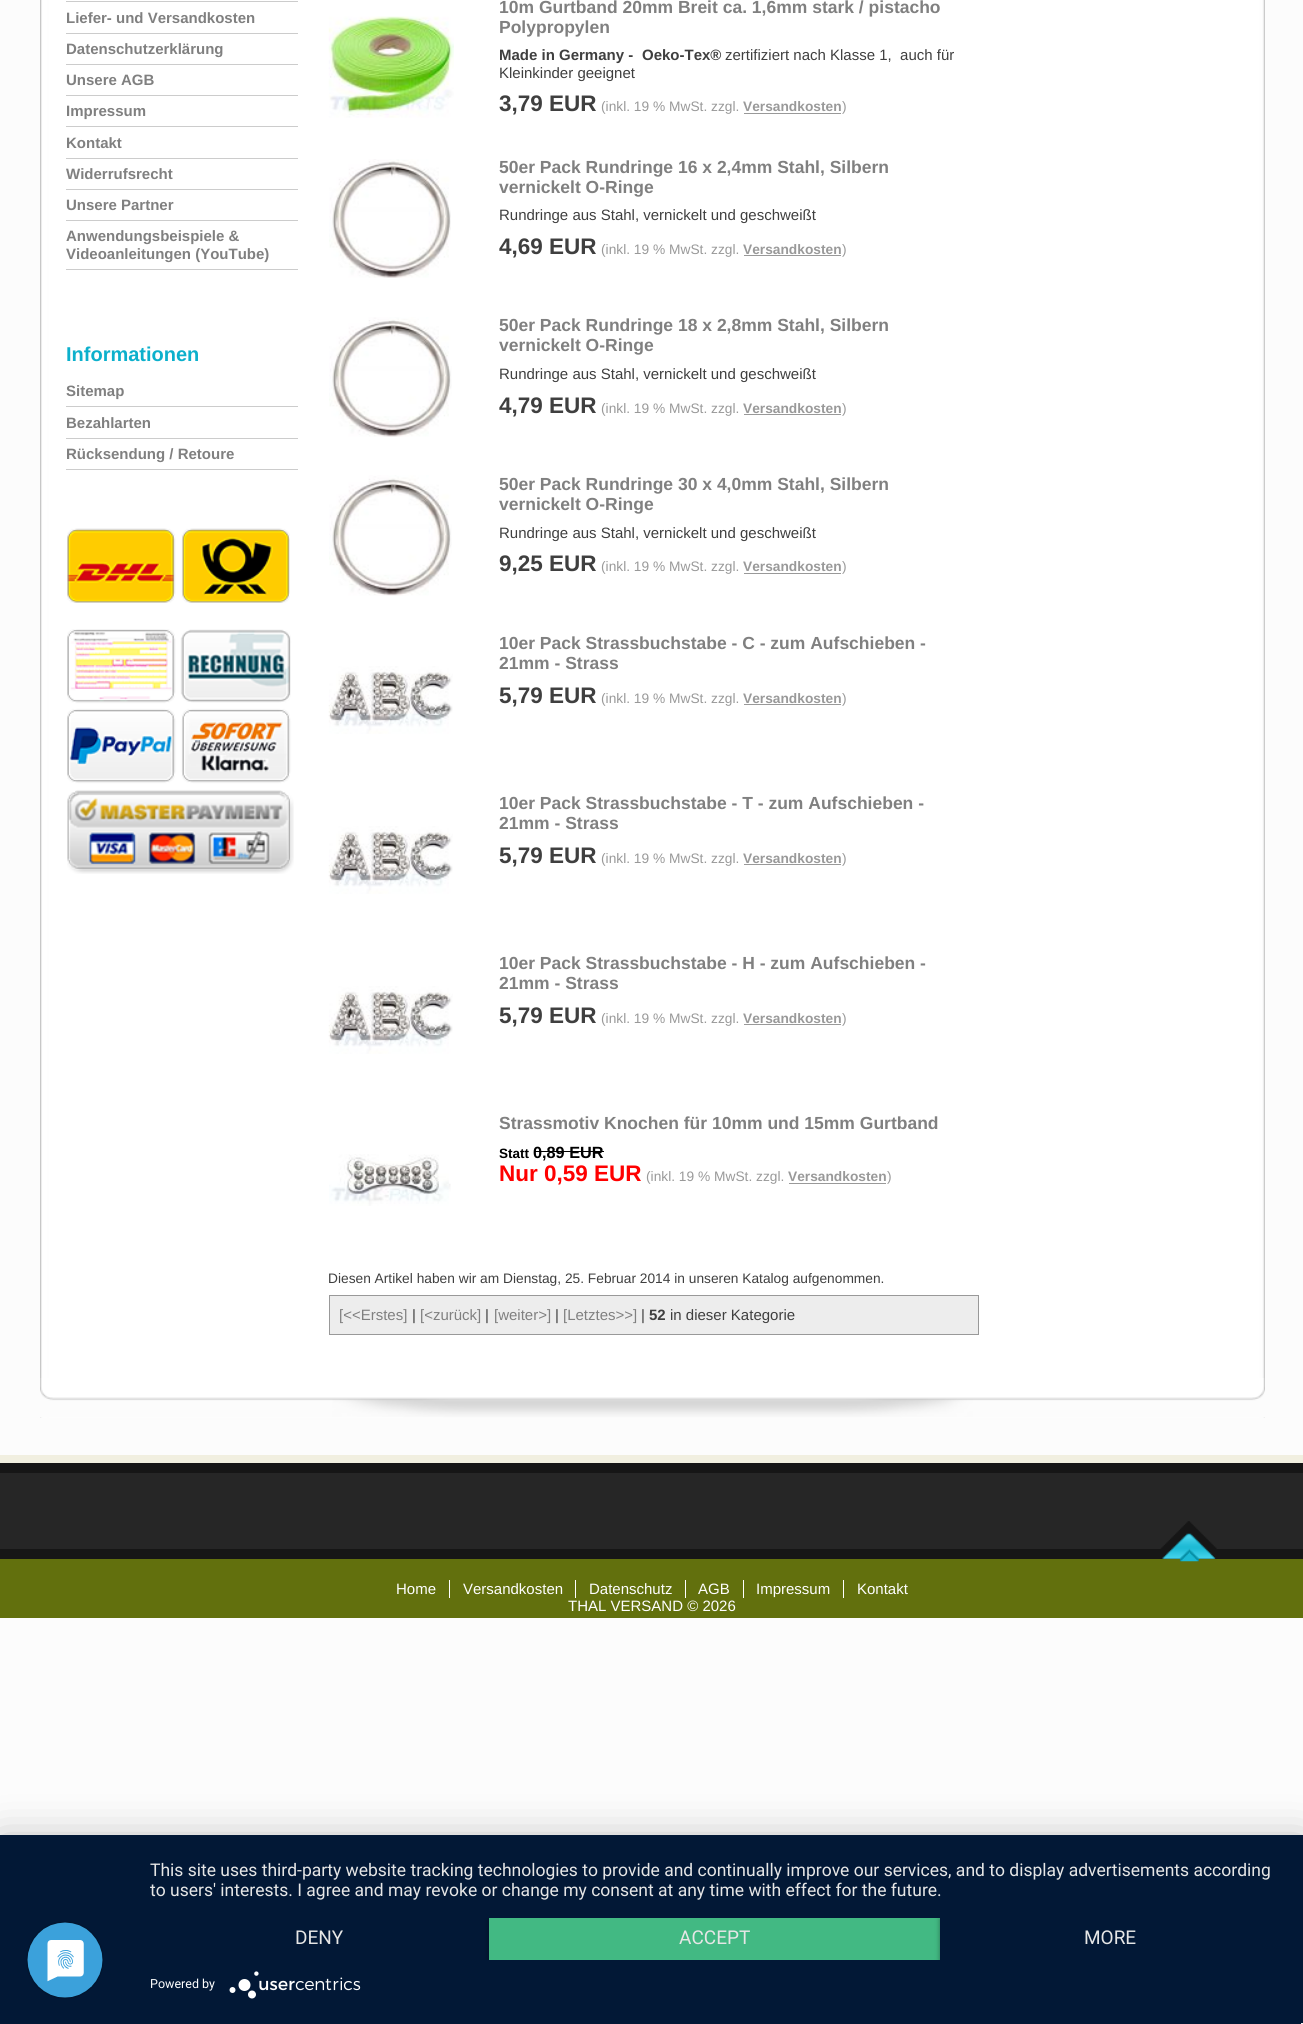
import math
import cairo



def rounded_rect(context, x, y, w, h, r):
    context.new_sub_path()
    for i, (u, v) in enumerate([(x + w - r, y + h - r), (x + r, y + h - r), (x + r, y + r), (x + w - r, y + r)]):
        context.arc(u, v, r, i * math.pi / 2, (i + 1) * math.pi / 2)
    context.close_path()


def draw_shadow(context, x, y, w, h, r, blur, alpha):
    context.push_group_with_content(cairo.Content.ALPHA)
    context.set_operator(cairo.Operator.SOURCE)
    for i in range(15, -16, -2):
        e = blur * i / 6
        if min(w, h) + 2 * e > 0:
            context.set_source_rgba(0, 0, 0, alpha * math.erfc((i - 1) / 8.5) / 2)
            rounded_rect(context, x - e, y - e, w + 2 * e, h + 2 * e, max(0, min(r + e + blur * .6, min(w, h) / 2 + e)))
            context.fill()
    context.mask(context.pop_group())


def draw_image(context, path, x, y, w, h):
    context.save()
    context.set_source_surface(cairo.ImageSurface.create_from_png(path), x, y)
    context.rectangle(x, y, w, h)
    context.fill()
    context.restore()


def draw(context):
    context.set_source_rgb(252 / 255, 252 / 255, 252 / 255)
    context.paint()
    draw_image(context, "images/1.png", 40, 0, 1225, 1418)
    draw_image(context, "images/2.png", 40, 1378, 1225, 40)
    context.set_source_rgb(204 / 255, 204 / 255, 204 / 255)
    context.rectangle(66, 1, 232, 1)
    context.fill()
    context.rectangle(66, 33, 232, 1)
    context.fill()
    context.rectangle(66, 64, 232, 1)
    context.fill()
    context.rectangle(66, 95, 232, 1)
    context.fill()
    context.rectangle(66, 126, 232, 1)
    context.fill()
    context.rectangle(66, 158, 232, 1)
    context.fill()
    context.rectangle(66, 189, 232, 1)
    context.fill()
    context.rectangle(66, 220, 232, 1)
    context.fill()
    context.rectangle(66, 269, 232, 1)
    context.fill()
    context.rectangle(66, 406, 232, 1)
    context.fill()
    context.rectangle(66, 438, 232, 1)
    context.fill()
    context.rectangle(66, 469, 232, 1)
    context.fill()
    draw_image(context, "images/3.png", 67, 528, 223, 75)
    draw_image(context, "images/4.png", 67, 629, 227, 245)
    draw_image(context, "images/5.png", 328, 16, 126, 102)
    context.set_source_rgb(153 / 255, 153 / 255, 153 / 255)
    context.rectangle(744, 113, 97, 1)
    context.fill()
    draw_image(context, "images/6.png", 329, 159, 122, 119)
    context.rectangle(744, 255, 97, 1)
    context.fill()
    draw_image(context, "images/7.png", 329, 317, 123, 120)
    context.rectangle(744, 414, 97, 1)
    context.fill()
    draw_image(context, "images/8.png", 329, 475, 123, 121)
    context.rectangle(744, 573, 97, 1)
    context.fill()
    draw_image(context, "images/9.png", 328, 666, 125, 68)
    context.rectangle(744, 704, 97, 1)
    context.fill()
    draw_image(context, "images/9.png", 328, 826, 125, 68)
    context.rectangle(744, 864, 97, 1)
    context.fill()
    draw_image(context, "images/9.png", 328, 986, 125, 68)
    context.rectangle(744, 1024, 97, 1)
    context.fill()
    draw_image(context, "images/10.png", 329, 1154, 122, 52)
    context.set_source_rgb(0, 0, 0)
    context.rectangle(534, 1151, 70, 1)
    context.fill()
    context.set_source_rgb(153 / 255, 153 / 255, 153 / 255)
    context.rectangle(789, 1183, 97, 1)
    context.fill()
    context.set_source_rgb(237 / 255, 237 / 255, 237 / 255)
    context.rectangle(329.5, 1295.5, 649, 39)
    context.fill_preserve()
    context.set_source_rgb(153 / 255, 153 / 255, 153 / 255)
    context.set_line_width(1)
    context.stroke()
    context.set_source_rgb(241 / 255, 239 / 255, 224 / 255)
    context.rectangle(0, 1455, 1303, 8)
    context.fill()
    context.set_source_rgb(38 / 255, 38 / 255, 38 / 255)
    context.rectangle(0, 1473, 1303, 76)
    context.fill()
    context.set_source_rgb(22 / 255, 22 / 255, 22 / 255)
    context.rectangle(0, 1463, 1303, 10)
    context.fill()
    context.rectangle(0, 1549, 1303, 10)
    context.fill()
    context.set_source_rgb(98 / 255, 112 / 255, 13 / 255)
    context.rectangle(0, 1559, 1303, 59)
    context.fill()
    draw_image(context, "images/11.png", 1160, 1521, 57, 41)
    context.set_source_rgb(1, 1, 1)
    context.rectangle(449, 1580, 1, 18)
    context.fill()
    context.rectangle(575, 1580, 1, 18)
    context.fill()
    context.rectangle(685, 1580, 1, 18)
    context.fill()
    context.rectangle(743, 1580, 1, 18)
    context.fill()
    context.rectangle(843, 1580, 1, 18)
    context.fill()
    context.set_source_rgb(0, 0, 0)
    draw_shadow(context, 0, 1843, 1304, 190, 0, 22.5, 0.3)
    context.set_source_rgb(2 / 255, 24 / 255, 54 / 255)
    context.rectangle(0, 1835, 1303, 189)
    context.fill()
    draw_image(context, "images/12.png", 26, 1921, 78, 78)
    context.save()
    context.rectangle(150, 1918, 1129, 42)
    context.clip()
    context.set_source_rgb(0, 0, 0)
    draw_shadow(context, 489, 1919, 451, 42, 0, 2.5, 0.4)
    context.restore()
    context.set_source_rgb(66 / 255, 185 / 255, 131 / 255)
    context.rectangle(489, 1918, 451, 42)
    context.fill()
    context.save()
    context.rectangle(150, 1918, 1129, 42)
    context.clip()
    context.set_source_rgb(0, 0, 0)
    draw_shadow(context, 940, 1919, 339, 42, 0, 2.5, 0.4)
    context.restore()
    context.set_source_rgb(2 / 255, 24 / 255, 54 / 255)
    context.rectangle(940, 1918, 339, 42)
    context.fill()
    draw_image(context, "images/13.png", 229, 1971, 132, 28)
    context.set_source_rgb(245 / 255, 245 / 255, 245 / 255)
    context.rectangle(1301, 2023, 2, 1)
    context.fill()
    context.select_font_face("Liberation Sans", cairo.FontSlant.NORMAL, cairo.FontWeight.BOLD)
    context.set_font_size(15)
    context.set_source_rgb(128 / 255, 128 / 255, 128 / 255)
    context.move_to(66, 23)
    context.show_text("Liefer- und Versandkosten")
    context.move_to(66, 54)
    context.show_text("Datenschutzerklärung")
    context.move_to(66, 85)
    context.show_text("Unsere AGB")
    context.move_to(66, 116)
    context.show_text("Impressum")
    context.move_to(66, 148)
    context.show_text("Kontakt")
    context.move_to(66, 179)
    context.show_text("Widerrufsrecht")
    context.move_to(66, 210)
    context.show_text("Unsere Partner")
    context.move_to(66, 241)
    context.show_text("Anwendungsbeispiele &")
    context.move_to(66, 259)
    context.show_text("Videoanleitungen (YouTube)")
    context.set_font_size(20)
    context.set_source_rgb(12 / 255, 176 / 255, 204 / 255)
    context.move_to(66, 361)
    context.show_text("Informationen")
    context.set_font_size(15)
    context.set_source_rgb(128 / 255, 128 / 255, 128 / 255)
    context.move_to(66, 396)
    context.show_text("Sitemap")
    context.move_to(66, 428)
    context.show_text("Bezahlarten")
    context.move_to(66, 459)
    context.show_text("Rücksendung / Retoure")
    context.set_font_size(17.5)
    context.move_to(499, 13)
    context.show_text("10m Gurtband 20mm Breit ca. 1,6mm stark / pistacho")
    context.move_to(499, 33)
    context.show_text("Polypropylen")
    context.set_font_size(15)
    context.set_source_rgb(63 / 255, 63 / 255, 63 / 255)
    context.move_to(499, 60)
    context.show_text("Made in Germany -")
    context.move_to(642, 60)
    context.show_text("Oeko-Tex®")
    context.select_font_face("Liberation Sans")
    context.move_to(725, 60)
    context.show_text("zertifiziert nach Klasse 1,  auch für")
    context.move_to(499, 78)
    context.show_text("Kleinkinder geeignet")
    context.select_font_face("Liberation Sans", cairo.FontSlant.NORMAL, cairo.FontWeight.BOLD)
    context.set_font_size(22.5)
    context.move_to(499, 111)
    context.show_text("3,79 EUR")
    context.select_font_face("Liberation Sans")
    context.set_font_size(13.75)
    context.set_source_rgb(153 / 255, 153 / 255, 153 / 255)
    context.move_to(601, 111)
    context.show_text("(inkl. 19 % MwSt. zzgl.")
    context.select_font_face("Liberation Sans", cairo.FontSlant.NORMAL, cairo.FontWeight.BOLD)
    context.move_to(743, 111)
    context.show_text("Versandkosten")
    context.select_font_face("Liberation Sans")
    context.move_to(842, 111)
    context.show_text(")")
    context.select_font_face("Liberation Sans", cairo.FontSlant.NORMAL, cairo.FontWeight.BOLD)
    context.set_font_size(17.5)
    context.set_source_rgb(128 / 255, 128 / 255, 128 / 255)
    context.move_to(499, 173)
    context.show_text("50er Pack Rundringe 16 x 2,4mm Stahl, Silbern")
    context.move_to(499, 193)
    context.show_text("vernickelt O-Ringe")
    context.select_font_face("Liberation Sans")
    context.set_font_size(15)
    context.set_source_rgb(63 / 255, 63 / 255, 63 / 255)
    context.move_to(499, 220)
    context.show_text("Rundringe aus Stahl, vernickelt und geschweißt")
    context.select_font_face("Liberation Sans", cairo.FontSlant.NORMAL, cairo.FontWeight.BOLD)
    context.set_font_size(22.5)
    context.move_to(499, 254)
    context.show_text("4,69 EUR")
    context.select_font_face("Liberation Sans")
    context.set_font_size(13.75)
    context.set_source_rgb(153 / 255, 153 / 255, 153 / 255)
    context.move_to(601, 254)
    context.show_text("(inkl. 19 % MwSt. zzgl.")
    context.select_font_face("Liberation Sans", cairo.FontSlant.NORMAL, cairo.FontWeight.BOLD)
    context.move_to(743, 254)
    context.show_text("Versandkosten")
    context.select_font_face("Liberation Sans")
    context.move_to(842, 254)
    context.show_text(")")
    context.select_font_face("Liberation Sans", cairo.FontSlant.NORMAL, cairo.FontWeight.BOLD)
    context.set_font_size(17.5)
    context.set_source_rgb(128 / 255, 128 / 255, 128 / 255)
    context.move_to(499, 331)
    context.show_text("50er Pack Rundringe 18 x 2,8mm Stahl, Silbern")
    context.move_to(499, 351)
    context.show_text("vernickelt O-Ringe")
    context.select_font_face("Liberation Sans")
    context.set_font_size(15)
    context.set_source_rgb(63 / 255, 63 / 255, 63 / 255)
    context.move_to(499, 379)
    context.show_text("Rundringe aus Stahl, vernickelt und geschweißt")
    context.select_font_face("Liberation Sans", cairo.FontSlant.NORMAL, cairo.FontWeight.BOLD)
    context.set_font_size(22.5)
    context.move_to(499, 413)
    context.show_text("4,79 EUR")
    context.select_font_face("Liberation Sans")
    context.set_font_size(13.75)
    context.set_source_rgb(153 / 255, 153 / 255, 153 / 255)
    context.move_to(601, 413)
    context.show_text("(inkl. 19 % MwSt. zzgl.")
    context.select_font_face("Liberation Sans", cairo.FontSlant.NORMAL, cairo.FontWeight.BOLD)
    context.move_to(743, 413)
    context.show_text("Versandkosten")
    context.select_font_face("Liberation Sans")
    context.move_to(842, 413)
    context.show_text(")")
    context.select_font_face("Liberation Sans", cairo.FontSlant.NORMAL, cairo.FontWeight.BOLD)
    context.set_font_size(17.5)
    context.set_source_rgb(128 / 255, 128 / 255, 128 / 255)
    context.move_to(499, 490)
    context.show_text("50er Pack Rundringe 30 x 4,0mm Stahl, Silbern")
    context.move_to(499, 510)
    context.show_text("vernickelt O-Ringe")
    context.select_font_face("Liberation Sans")
    context.set_font_size(15)
    context.set_source_rgb(63 / 255, 63 / 255, 63 / 255)
    context.move_to(499, 538)
    context.show_text("Rundringe aus Stahl, vernickelt und geschweißt")
    context.select_font_face("Liberation Sans", cairo.FontSlant.NORMAL, cairo.FontWeight.BOLD)
    context.set_font_size(22.5)
    context.move_to(499, 571)
    context.show_text("9,25 EUR")
    context.select_font_face("Liberation Sans")
    context.set_font_size(13.75)
    context.set_source_rgb(153 / 255, 153 / 255, 153 / 255)
    context.move_to(601, 571)
    context.show_text("(inkl. 19 % MwSt. zzgl.")
    context.select_font_face("Liberation Sans", cairo.FontSlant.NORMAL, cairo.FontWeight.BOLD)
    context.move_to(743, 571)
    context.show_text("Versandkosten")
    context.select_font_face("Liberation Sans")
    context.move_to(842, 571)
    context.show_text(")")
    context.select_font_face("Liberation Sans", cairo.FontSlant.NORMAL, cairo.FontWeight.BOLD)
    context.set_font_size(17.5)
    context.set_source_rgb(128 / 255, 128 / 255, 128 / 255)
    context.move_to(499, 649)
    context.show_text("10er Pack Strassbuchstabe - C - zum Aufschieben -")
    context.move_to(499, 669)
    context.show_text("21mm - Strass")
    context.set_font_size(22.5)
    context.set_source_rgb(63 / 255, 63 / 255, 63 / 255)
    context.move_to(499, 703)
    context.show_text("5,79 EUR")
    context.select_font_face("Liberation Sans")
    context.set_font_size(13.75)
    context.set_source_rgb(153 / 255, 153 / 255, 153 / 255)
    context.move_to(601, 703)
    context.show_text("(inkl. 19 % MwSt. zzgl.")
    context.select_font_face("Liberation Sans", cairo.FontSlant.NORMAL, cairo.FontWeight.BOLD)
    context.move_to(743, 703)
    context.show_text("Versandkosten")
    context.select_font_face("Liberation Sans")
    context.move_to(842, 703)
    context.show_text(")")
    context.select_font_face("Liberation Sans", cairo.FontSlant.NORMAL, cairo.FontWeight.BOLD)
    context.set_font_size(17.5)
    context.set_source_rgb(128 / 255, 128 / 255, 128 / 255)
    context.move_to(499, 809)
    context.show_text("10er Pack Strassbuchstabe - T - zum Aufschieben -")
    context.move_to(499, 829)
    context.show_text("21mm - Strass")
    context.set_font_size(22.5)
    context.set_source_rgb(63 / 255, 63 / 255, 63 / 255)
    context.move_to(499, 863)
    context.show_text("5,79 EUR")
    context.select_font_face("Liberation Sans")
    context.set_font_size(13.75)
    context.set_source_rgb(153 / 255, 153 / 255, 153 / 255)
    context.move_to(601, 863)
    context.show_text("(inkl. 19 % MwSt. zzgl.")
    context.select_font_face("Liberation Sans", cairo.FontSlant.NORMAL, cairo.FontWeight.BOLD)
    context.move_to(743, 863)
    context.show_text("Versandkosten")
    context.select_font_face("Liberation Sans")
    context.move_to(842, 863)
    context.show_text(")")
    context.select_font_face("Liberation Sans", cairo.FontSlant.NORMAL, cairo.FontWeight.BOLD)
    context.set_font_size(17.5)
    context.set_source_rgb(128 / 255, 128 / 255, 128 / 255)
    context.move_to(499, 969)
    context.show_text("10er Pack Strassbuchstabe - H - zum Aufschieben -")
    context.move_to(499, 989)
    context.show_text("21mm - Strass")
    context.set_font_size(22.5)
    context.set_source_rgb(63 / 255, 63 / 255, 63 / 255)
    context.move_to(499, 1023)
    context.show_text("5,79 EUR")
    context.select_font_face("Liberation Sans")
    context.set_font_size(13.75)
    context.set_source_rgb(153 / 255, 153 / 255, 153 / 255)
    context.move_to(601, 1023)
    context.show_text("(inkl. 19 % MwSt. zzgl.")
    context.select_font_face("Liberation Sans", cairo.FontSlant.NORMAL, cairo.FontWeight.BOLD)
    context.move_to(743, 1023)
    context.show_text("Versandkosten")
    context.select_font_face("Liberation Sans")
    context.move_to(842, 1023)
    context.show_text(")")
    context.select_font_face("Liberation Sans", cairo.FontSlant.NORMAL, cairo.FontWeight.BOLD)
    context.set_font_size(17.5)
    context.set_source_rgb(128 / 255, 128 / 255, 128 / 255)
    context.move_to(499, 1129)
    context.show_text("Strassmotiv Knochen für 10mm und 15mm Gurtband")
    context.set_font_size(13.5)
    context.set_source_rgb(0, 0, 0)
    context.move_to(499, 1158)
    context.show_text("Statt")
    context.set_font_size(16.25)
    context.move_to(533, 1158)
    context.show_text("0,89 EUR")
    context.set_font_size(22.5)
    context.set_source_rgb(1, 0, 0)
    context.move_to(499, 1181)
    context.show_text("Nur 0,59 EUR")
    context.select_font_face("Liberation Sans")
    context.set_font_size(13.75)
    context.set_source_rgb(153 / 255, 153 / 255, 153 / 255)
    context.move_to(646, 1181)
    context.show_text("(inkl. 19 % MwSt. zzgl.")
    context.select_font_face("Liberation Sans", cairo.FontSlant.NORMAL, cairo.FontWeight.BOLD)
    context.move_to(788, 1181)
    context.show_text("Versandkosten")
    context.select_font_face("Liberation Sans")
    context.move_to(887, 1181)
    context.show_text(")")
    context.set_source_rgb(63 / 255, 63 / 255, 63 / 255)
    context.move_to(328, 1283)
    context.show_text("Diesen Artikel haben wir am Dienstag, 25. Februar 2014 in unseren Katalog aufgenommen.")
    context.set_font_size(15)
    context.set_source_rgb(128 / 255, 128 / 255, 128 / 255)
    context.move_to(339, 1320)
    context.show_text("[<<Erstes]")
    context.set_source_rgb(63 / 255, 63 / 255, 63 / 255)
    context.move_to(412, 1320)
    context.show_text("|")
    context.set_source_rgb(128 / 255, 128 / 255, 128 / 255)
    context.move_to(420, 1320)
    context.show_text("[<zurück]")
    context.set_source_rgb(63 / 255, 63 / 255, 63 / 255)
    context.move_to(485, 1320)
    context.show_text("|")
    context.set_source_rgb(128 / 255, 128 / 255, 128 / 255)
    context.move_to(494, 1320)
    context.show_text("[weiter>]")
    context.set_source_rgb(63 / 255, 63 / 255, 63 / 255)
    context.move_to(555, 1320)
    context.show_text("|")
    context.set_source_rgb(128 / 255, 128 / 255, 128 / 255)
    context.move_to(563, 1320)
    context.show_text("[Letztes>>]")
    context.set_source_rgb(63 / 255, 63 / 255, 63 / 255)
    context.move_to(641, 1320)
    context.show_text("|")
    context.select_font_face("Liberation Sans", cairo.FontSlant.NORMAL, cairo.FontWeight.BOLD)
    context.move_to(649, 1320)
    context.show_text("52")
    context.select_font_face("Liberation Sans")
    context.move_to(670, 1320)
    context.show_text("in dieser Kategorie")
    context.set_source_rgb(254 / 255, 254 / 255, 254 / 255)
    context.move_to(396, 1594)
    context.show_text("Home")
    context.move_to(463, 1594)
    context.show_text("Versandkosten")
    context.move_to(589, 1594)
    context.show_text("Datenschutz")
    context.move_to(698, 1594)
    context.show_text("AGB")
    context.move_to(756, 1594)
    context.show_text("Impressum")
    context.move_to(857, 1594)
    context.show_text("Kontakt")
    context.move_to(568, 1611)
    context.show_text("THAL VERSAND © 2026")
    context.select_font_face("Roboto")
    context.set_font_size(17.5)
    context.set_source_rgb(230 / 255, 230 / 255, 230 / 255)
    context.move_to(150, 1876)
    context.show_text("This site uses third-party website tracking technologies to provide and continually improve our services, and to display advertisements according")
    context.move_to(150, 1896)
    context.show_text("to users' interests. I agree and may revoke or change my consent at any time with effect for the future.")
    context.set_font_size(19)
    context.move_to(295, 1944)
    context.show_text("DENY")
    context.move_to(679, 1944)
    context.show_text("ACCEPT")
    context.move_to(1084, 1944)
    context.show_text("MORE")
    context.set_font_size(12.5)
    context.set_source_rgb(254 / 255, 254 / 255, 254 / 255)
    context.move_to(150, 1988)
    context.show_text("Powered by")


surface = cairo.ImageSurface(cairo.Format.RGB24, 1303, 2024)
context = cairo.Context(surface)
options = cairo.FontOptions()
options.set_hint_metrics(cairo.HintMetrics.OFF)
options.set_hint_style(cairo.HintStyle.NONE)
context.set_font_options(options)
context.set_miter_limit(4)
draw(context)
surface.write_to_png("out.png")
